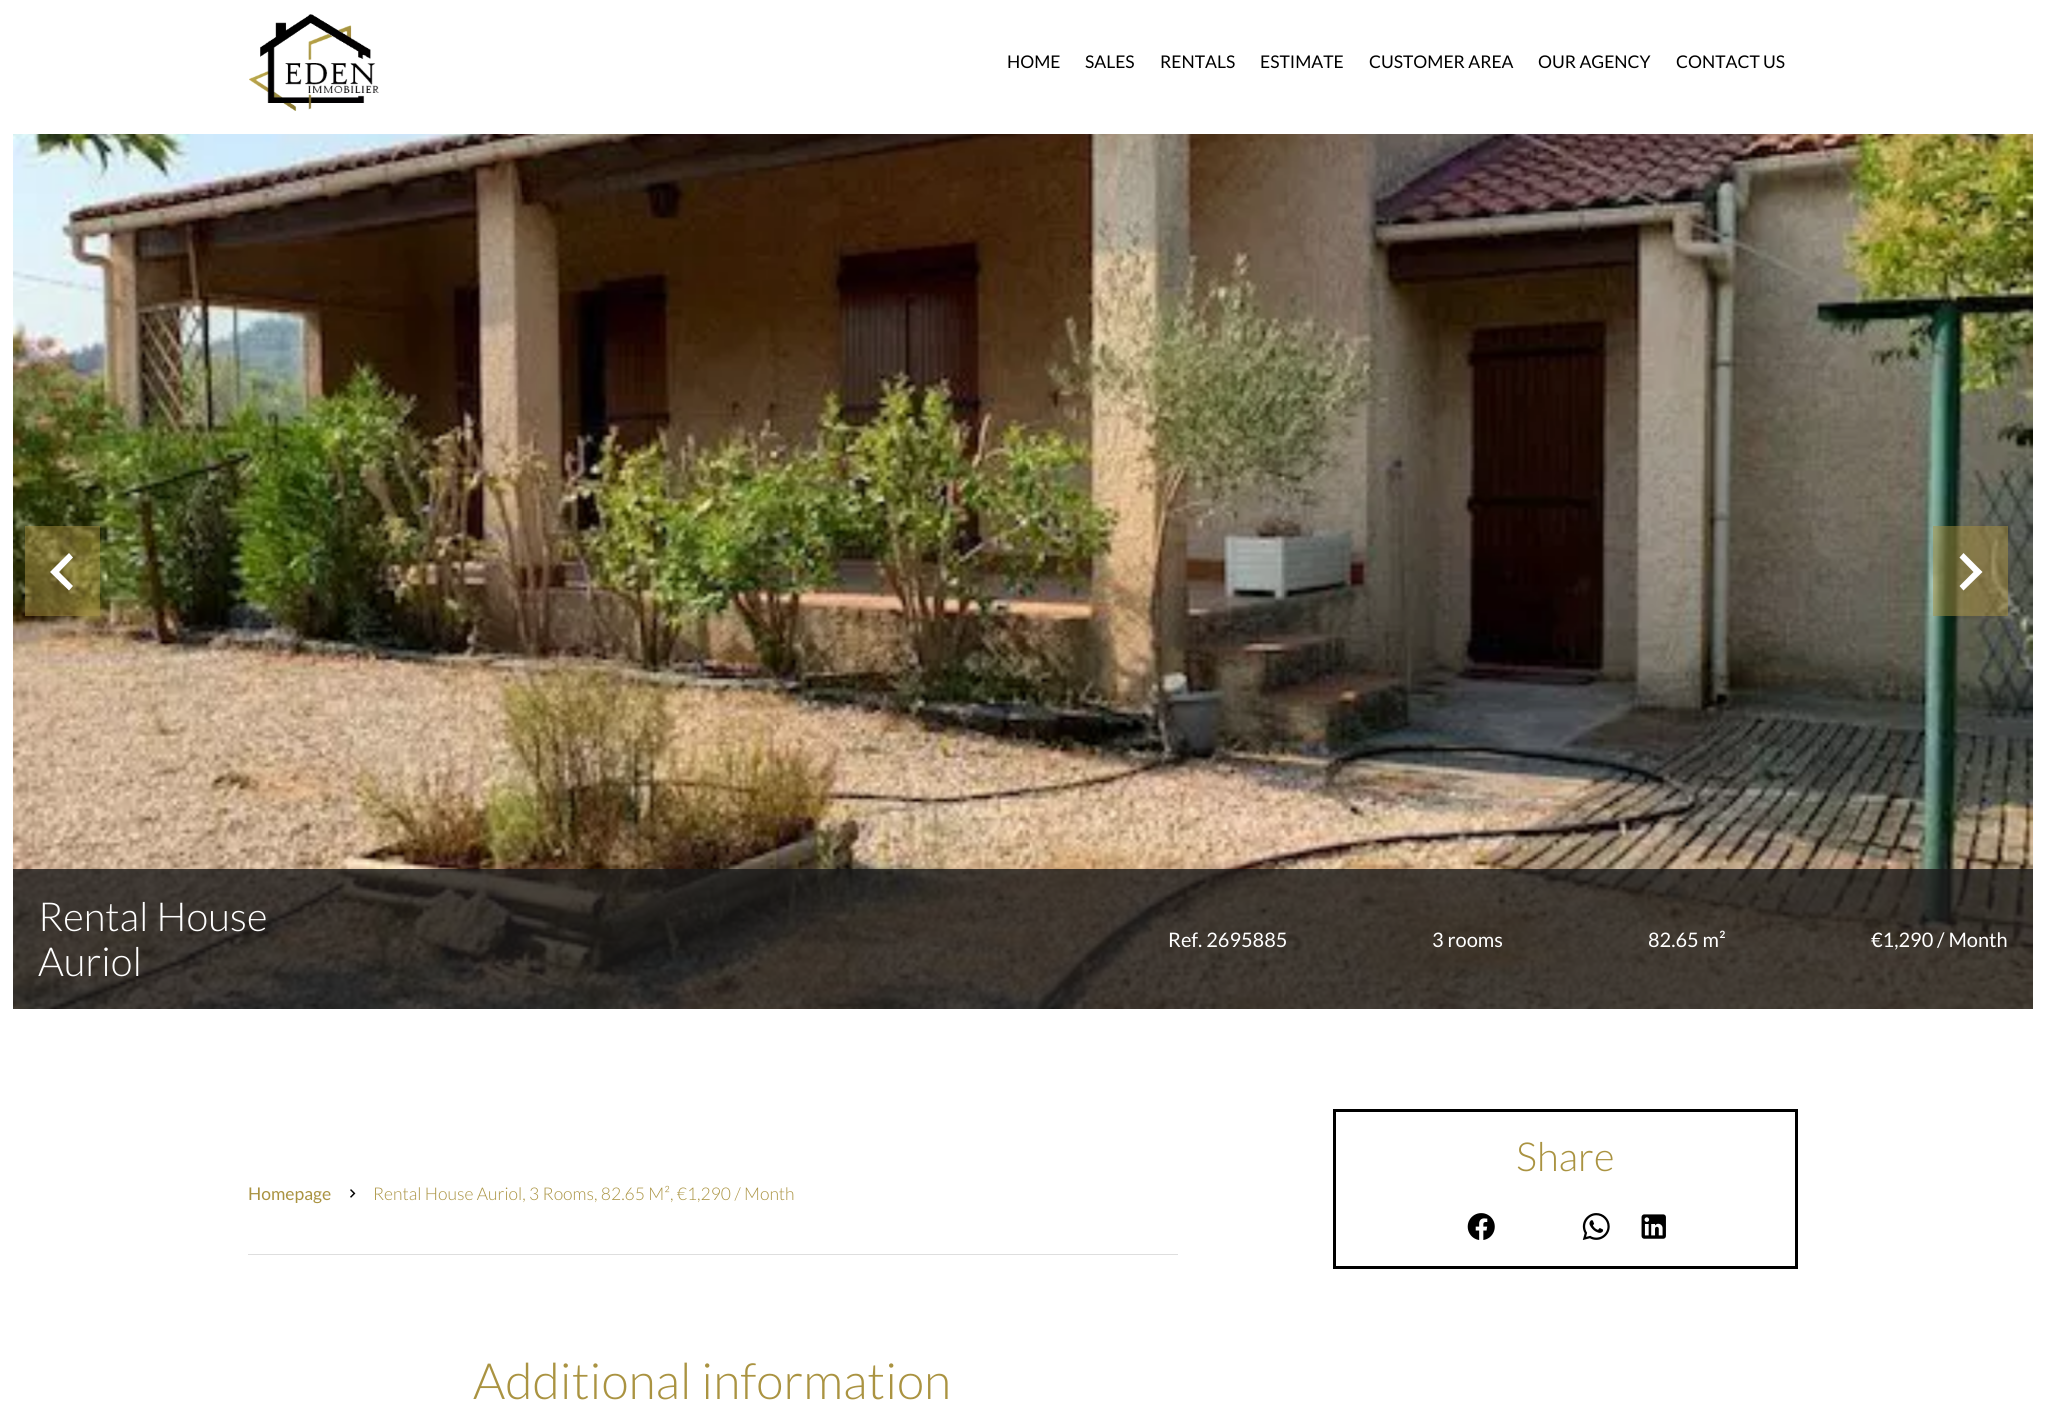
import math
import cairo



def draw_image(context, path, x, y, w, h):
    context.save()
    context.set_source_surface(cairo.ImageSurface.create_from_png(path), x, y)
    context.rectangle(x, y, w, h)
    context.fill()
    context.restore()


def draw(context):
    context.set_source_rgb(1, 1, 1)
    context.paint()
    draw_image(context, "images/1.png", 249, 14, 130, 97)
    draw_image(context, "images/2.png", 13, 134, 2020, 875)
    context.set_source_rgba(170 / 255, 147 / 255, 65 / 255, 0.5)
    context.rectangle(25, 526, 75, 90)
    context.fill()
    context.set_source_rgb(1, 1, 1)
    context.new_path()
    context.move_to(73, 586)
    context.line_to(59, 572)
    context.line_to(73, 557.5)
    context.line_to(69, 553)
    context.line_to(50, 572)
    context.line_to(69, 590.5)
    context.close_path()
    context.fill()
    context.set_source_rgba(170 / 255, 147 / 255, 65 / 255, 0.5)
    context.rectangle(1933, 526, 75, 90)
    context.fill()
    context.set_source_rgb(1, 1, 1)
    context.new_path()
    context.move_to(1959.5, 586)
    context.line_to(1973.5, 572)
    context.line_to(1959.5, 557.5)
    context.line_to(1963.5, 553)
    context.line_to(1982.5, 572)
    context.line_to(1963.5, 590.5)
    context.close_path()
    context.fill()
    context.set_source_rgba(25 / 255, 25 / 255, 25 / 255, 0.8)
    context.rectangle(13, 869, 2020, 140)
    context.fill()
    context.rectangle(1334.5, 1110.5, 462, 157)
    context.set_source_rgb(0, 0, 0)
    context.set_line_width(3)
    context.stroke()
    draw_image(context, "images/3.png", 1467, 1213, 28, 27)
    draw_image(context, "images/4.png", 1582, 1213, 28, 27)
    draw_image(context, "images/5.png", 1641, 1214, 25, 25)
    context.set_source_rgb(222 / 255, 222 / 255, 222 / 255)
    context.rectangle(248, 1254, 930, 1)
    context.fill()
    draw_image(context, "images/6.png", 350, 1189, 6, 9)
    context.select_font_face("Lato")
    context.set_font_size(17.5)
    context.set_source_rgb(0, 0, 0)
    context.move_to(1007, 68)
    context.show_text("HOME")
    context.move_to(1085, 68)
    context.show_text("SALES")
    context.move_to(1160, 68)
    context.show_text("RENTALS")
    context.move_to(1260, 68)
    context.show_text("ESTIMATE")
    context.move_to(1369, 68)
    context.show_text("CUSTOMER AREA")
    context.move_to(1538, 68)
    context.show_text("OUR AGENCY")
    context.move_to(1676, 68)
    context.show_text("CONTACT US")
    context.select_font_face("Lato Light")
    context.set_font_size(40)
    context.set_source_rgb(1, 1, 1)
    context.move_to(38, 931)
    context.show_text("Rental House")
    context.move_to(38, 976)
    context.show_text("Auriol")
    context.select_font_face("Lato")
    context.set_font_size(20)
    context.move_to(1168, 947)
    context.show_text("Ref. 2695885")
    context.move_to(1432, 947)
    context.show_text("3 rooms")
    context.move_to(1648, 947)
    context.show_text("82.65 m²")
    context.move_to(1871, 947)
    context.show_text("€1,290 / Month")
    context.select_font_face("Lato Light")
    context.set_font_size(40)
    context.set_source_rgb(170 / 255, 147 / 255, 65 / 255)
    context.move_to(1516, 1171)
    context.show_text("Share")
    context.select_font_face("Lato")
    context.set_font_size(17.5)
    context.move_to(248, 1200)
    context.show_text("Homepage")
    context.select_font_face("Lato Light")
    context.move_to(373, 1200)
    context.show_text("Rental House Auriol, 3 Rooms, 82.65 M², €1,290 / Month")
    context.set_font_size(50)
    context.move_to(473, 1399)
    context.show_text("Additional information")


surface = cairo.ImageSurface(cairo.Format.RGB24, 2045, 1417)
context = cairo.Context(surface)
options = cairo.FontOptions()
options.set_hint_metrics(cairo.HintMetrics.OFF)
options.set_hint_style(cairo.HintStyle.NONE)
context.set_font_options(options)
context.set_miter_limit(4)
draw(context)
surface.write_to_png("out.png")
